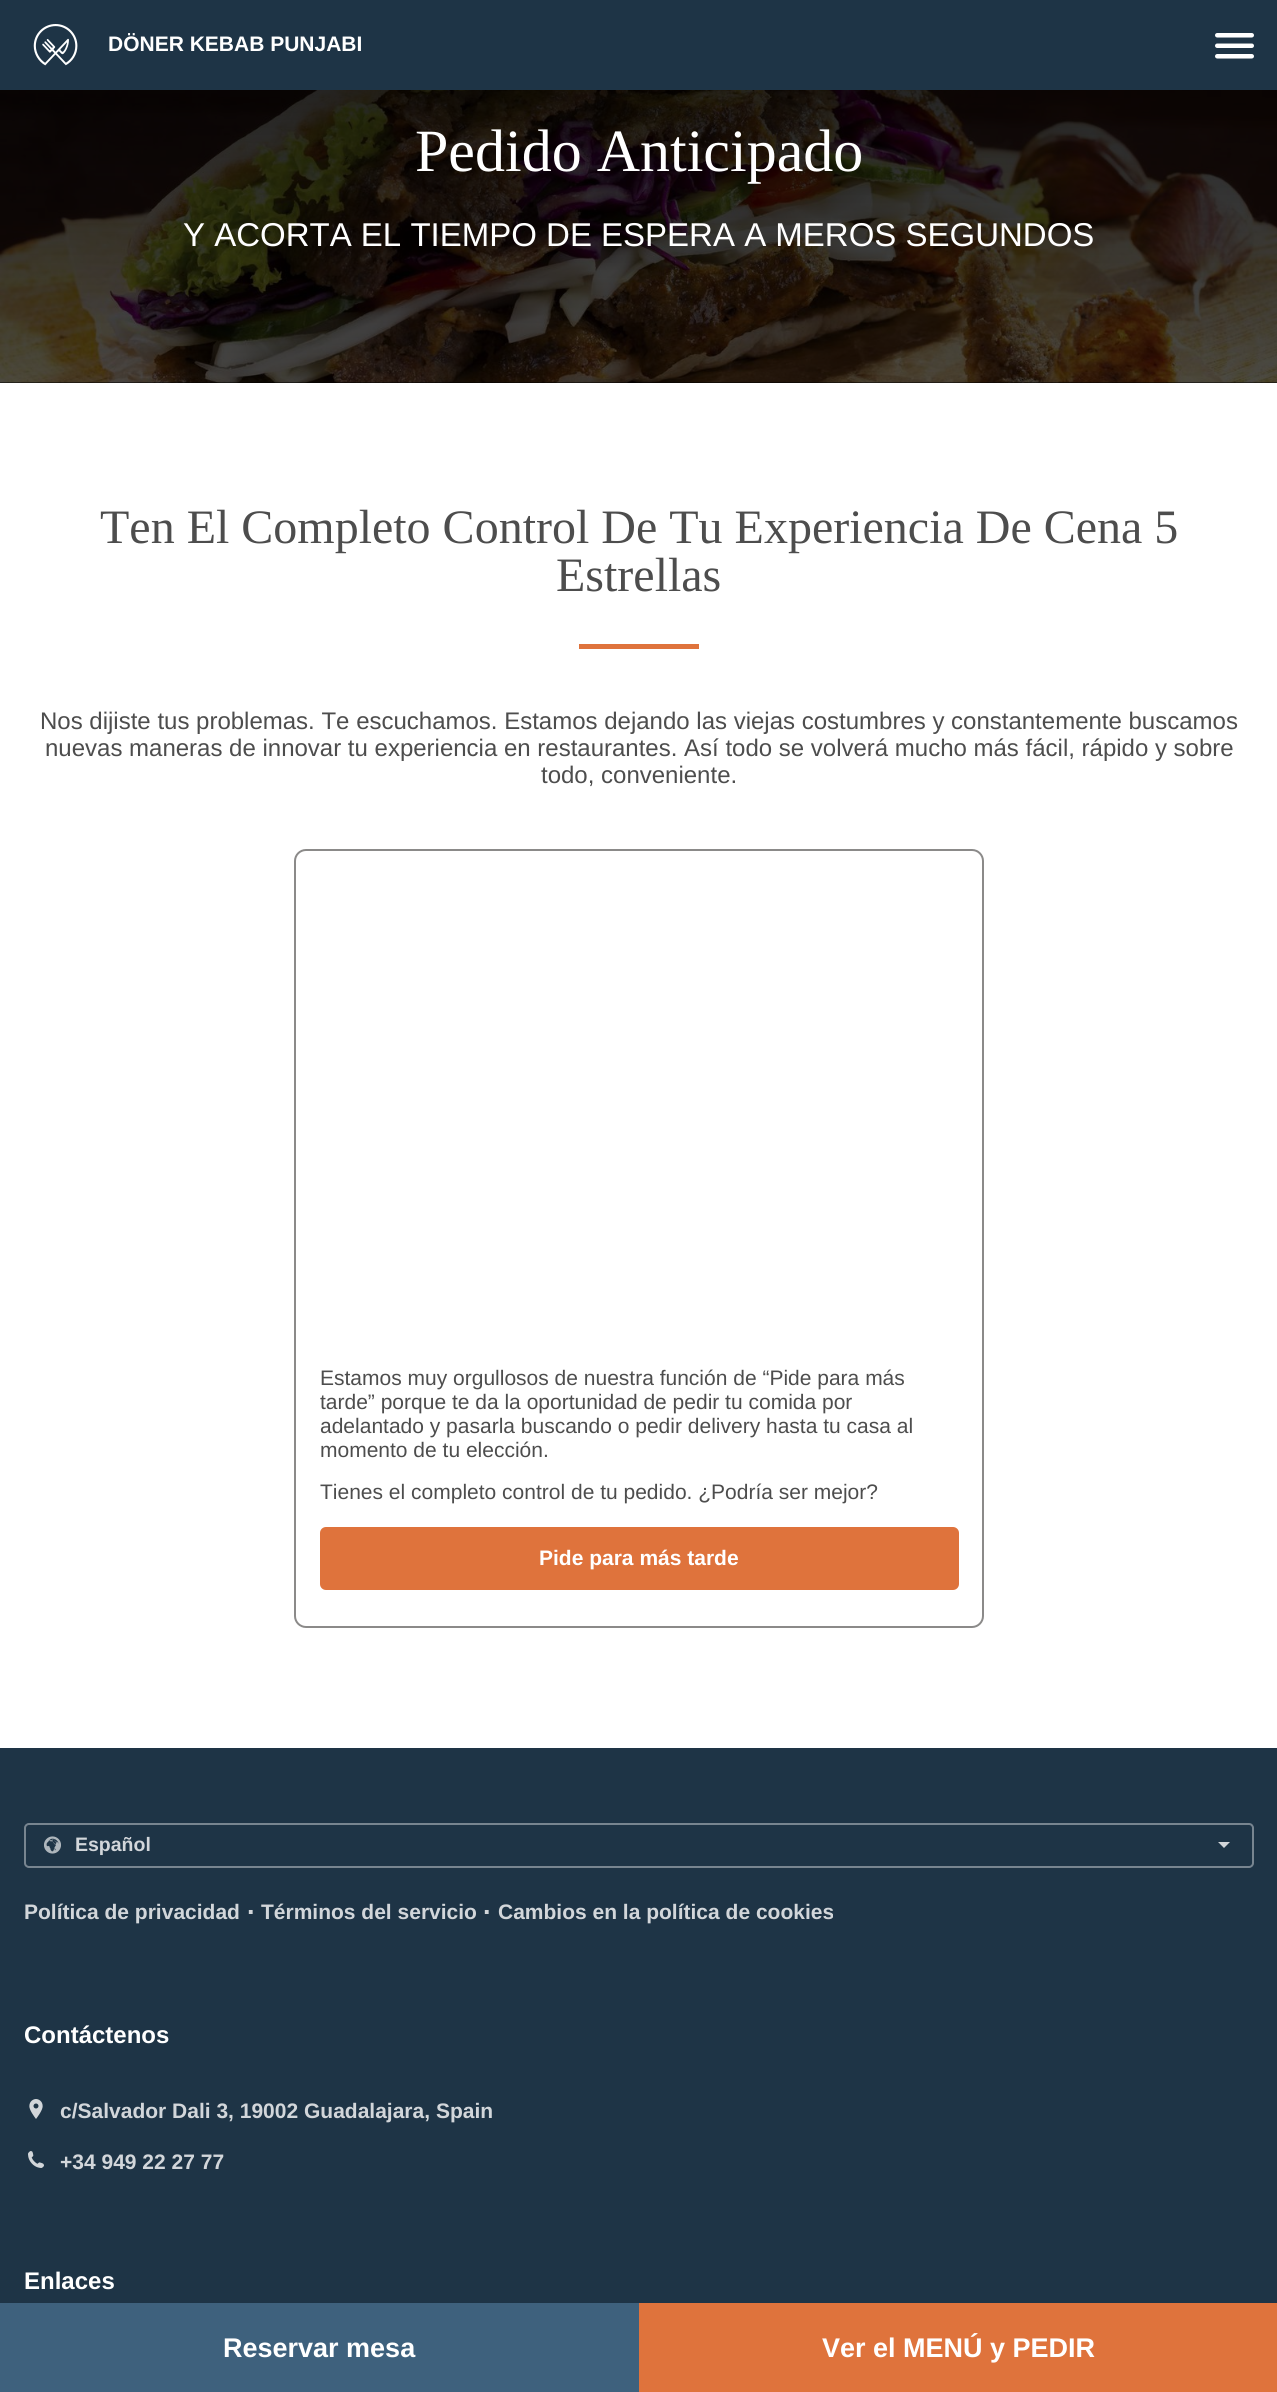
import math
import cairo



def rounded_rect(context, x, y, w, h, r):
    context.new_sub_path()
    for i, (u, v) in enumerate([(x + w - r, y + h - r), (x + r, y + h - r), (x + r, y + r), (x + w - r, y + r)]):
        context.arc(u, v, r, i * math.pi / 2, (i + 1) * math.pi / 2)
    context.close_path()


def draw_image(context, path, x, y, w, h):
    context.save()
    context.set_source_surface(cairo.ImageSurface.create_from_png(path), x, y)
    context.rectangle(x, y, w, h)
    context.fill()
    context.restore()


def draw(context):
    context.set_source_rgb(1, 1, 1)
    context.paint()
    context.set_source_rgb(30 / 255, 52 / 255, 70 / 255)
    context.rectangle(0, 0, 1277, 90)
    context.fill()
    draw_image(context, "images/1.png", 33, 24, 45, 42)
    draw_image(context, "images/2.png", 1215, 33, 39, 26)
    context.set_source_rgb(0, 0, 0)
    context.rectangle(0, 382, 1277, 1)
    context.fill()
    draw_image(context, "images/3.png", 0, 90, 1277, 293)
    gradient = cairo.LinearGradient(639, 0, 639, 383)
    gradient.add_color_stop_rgba(0, 0, 0, 0, 0.9)
    gradient.add_color_stop_rgba(1, 0, 0, 0, 0.7)
    context.set_source(gradient)
    context.rectangle(0, 90, 1277, 293)
    context.fill()
    context.set_source_rgb(223 / 255, 115 / 255, 60 / 255)
    context.rectangle(579, 644, 120, 5)
    context.fill()
    rounded_rect(context, 295, 850, 688, 777, 11)
    context.set_source_rgb(139 / 255, 138 / 255, 137 / 255)
    context.stroke()
    context.set_source_rgb(223 / 255, 115 / 255, 60 / 255)
    rounded_rect(context, 321, 1528, 637, 61, 5)
    context.fill_preserve()
    context.stroke()
    context.set_source_rgb(30 / 255, 52 / 255, 70 / 255)
    context.rectangle(0, 1748, 1277, 555)
    context.fill()
    draw_image(context, "images/4.png", 44, 1836, 17, 18)
    rounded_rect(context, 25, 1824, 1228, 43, 4)
    context.set_source_rgb(120 / 255, 133 / 255, 144 / 255)
    context.stroke()
    context.set_source_rgb(210 / 255, 214 / 255, 218 / 255)
    context.new_path()
    context.move_to(1218, 1842)
    context.line_to(1230, 1842)
    context.line_to(1224, 1848)
    context.close_path()
    context.fill()
    draw_image(context, "images/5.png", 29, 2099, 14, 20)
    draw_image(context, "images/6.png", 28, 2151, 16, 17)
    context.set_source_rgb(62 / 255, 97 / 255, 125 / 255)
    context.rectangle(0, 2303, 639, 89)
    context.fill()
    context.set_source_rgb(223 / 255, 115 / 255, 60 / 255)
    context.rectangle(639, 2303, 638, 89)
    context.fill()
    context.select_font_face("Liberation Sans", cairo.FontSlant.NORMAL, cairo.FontWeight.BOLD)
    context.set_font_size(21)
    context.set_source_rgb(1, 1, 1)
    context.move_to(108, 51)
    context.show_text("DÖNER KEBAB PUNJABI")
    context.select_font_face("Liberation Serif")
    context.set_font_size(60)
    context.move_to(415, 171)
    context.show_text("Pedido Anticipado")
    context.select_font_face("Liberation Sans")
    context.set_font_size(33)
    context.move_to(183, 246)
    context.show_text("Y ACORTA EL TIEMPO DE ESPERA A MEROS SEGUNDOS")
    context.select_font_face("Liberation Serif")
    context.set_font_size(48)
    context.set_source_rgb(77 / 255, 77 / 255, 77 / 255)
    context.move_to(100, 543)
    context.show_text("Ten El Completo Control De Tu Experiencia De Cena 5")
    context.move_to(556, 591)
    context.show_text("Estrellas")
    context.select_font_face("Liberation Sans")
    context.set_font_size(24)
    context.move_to(40, 729)
    context.show_text("Nos dijiste tus problemas. Te escuchamos. Estamos dejando las viejas costumbres y constantemente buscamos")
    context.move_to(45, 756)
    context.show_text("nuevas maneras de innovar tu experiencia en restaurantes. Así todo se volverá mucho más fácil, rápido y sobre")
    context.move_to(541, 783)
    context.show_text("todo, conveniente.")
    context.set_font_size(21)
    context.move_to(320, 1385)
    context.show_text("Estamos muy orgullosos de nuestra función de “Pide para más")
    context.move_to(320, 1409)
    context.show_text("tarde” porque te da la oportunidad de pedir tu comida por")
    context.move_to(320, 1433)
    context.show_text("adelantado y pasarla buscando o pedir delivery hasta tu casa al")
    context.move_to(320, 1457)
    context.show_text("momento de tu elección.")
    context.move_to(320, 1499)
    context.show_text("Tienes el completo control de tu pedido. ¿Podría ser mejor?")
    context.select_font_face("Liberation Sans", cairo.FontSlant.NORMAL, cairo.FontWeight.BOLD)
    context.set_source_rgb(1, 1, 1)
    context.move_to(539, 1565)
    context.show_text("Pide para más tarde")
    context.set_font_size(19.5)
    context.set_source_rgb(210 / 255, 214 / 255, 218 / 255)
    context.move_to(75, 1851)
    context.show_text("Español")
    context.set_font_size(21)
    context.move_to(24, 1919)
    context.show_text("Política de privacidad")
    context.set_font_size(27)
    context.move_to(247, 1914)
    context.show_text(".")
    context.set_font_size(21)
    context.move_to(261, 1919)
    context.show_text("Términos del servicio")
    context.set_font_size(27)
    context.move_to(483, 1914)
    context.show_text(".")
    context.set_font_size(21)
    context.move_to(498, 1919)
    context.show_text("Cambios en la política de cookies")
    context.set_font_size(24)
    context.set_source_rgb(1, 1, 1)
    context.move_to(24, 2043)
    context.show_text("Contáctenos")
    context.set_font_size(21)
    context.set_source_rgb(210 / 255, 214 / 255, 218 / 255)
    context.move_to(60, 2118)
    context.show_text("c/Salvador Dali 3, 19002 Guadalajara, Spain")
    context.move_to(60, 2169)
    context.show_text("+34 949 22 27 77")
    context.set_font_size(24)
    context.set_source_rgb(1, 1, 1)
    context.move_to(24, 2289)
    context.show_text("Enlaces")
    context.set_font_size(27)
    context.move_to(223, 2357)
    context.show_text("Reservar mesa")
    context.move_to(822, 2357)
    context.show_text("Ver el MENÚ y PEDIR")


surface = cairo.ImageSurface(cairo.Format.RGB24, 1277, 2392)
context = cairo.Context(surface)
options = cairo.FontOptions()
options.set_hint_metrics(cairo.HintMetrics.OFF)
options.set_hint_style(cairo.HintStyle.NONE)
context.set_font_options(options)
context.set_miter_limit(4)
draw(context)
surface.write_to_png("out.png")
